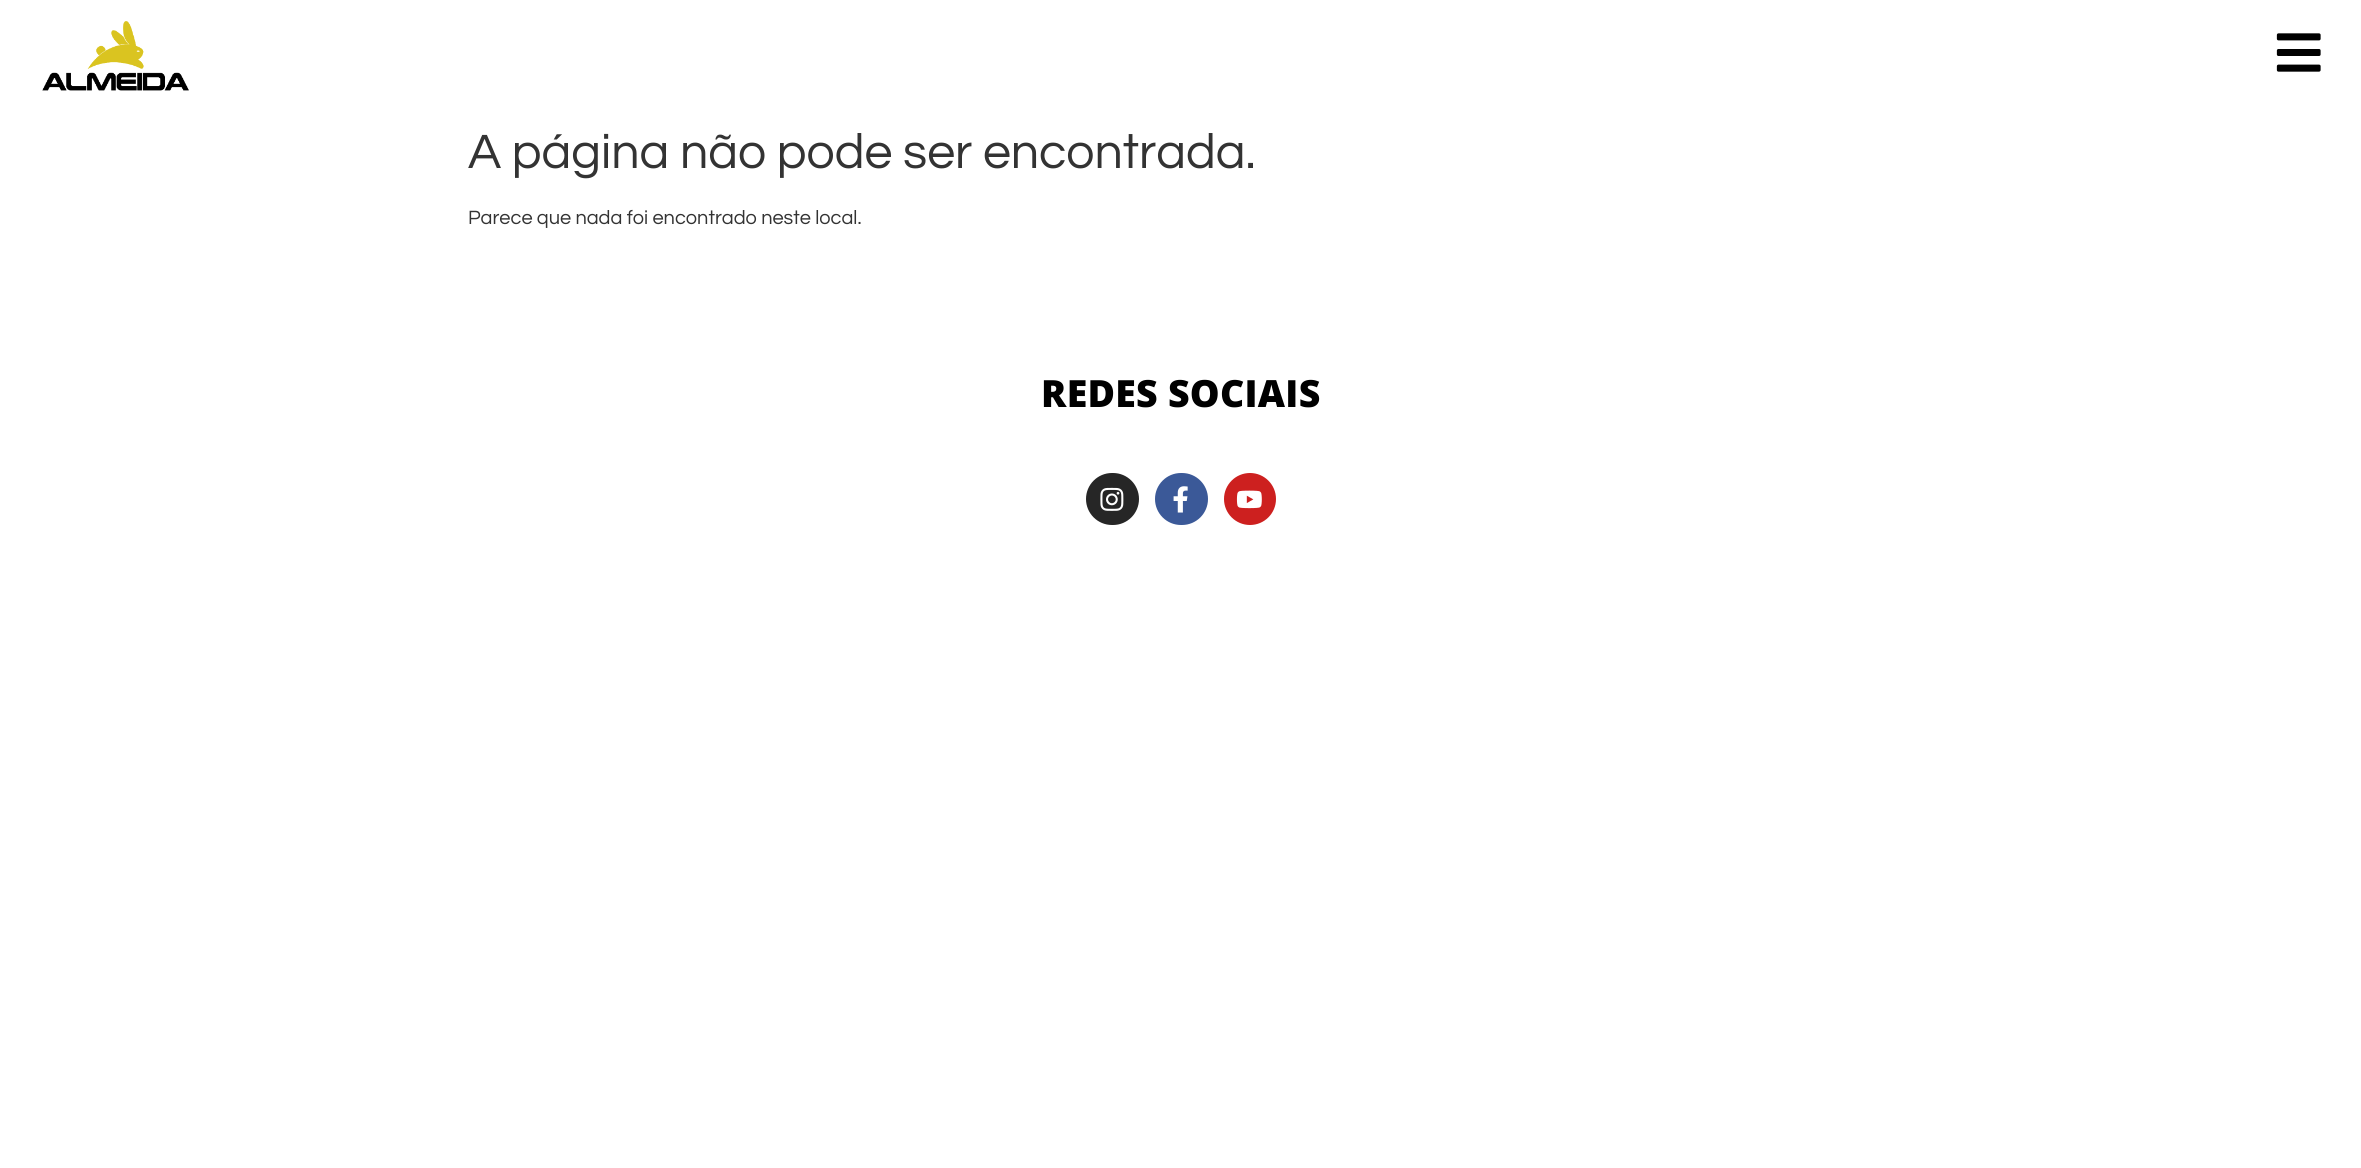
import math
import cairo



def draw_spaced(context, x, y, s, letter, word):
    context.move_to(x, y)
    for ch in s:
        context.show_text(ch)
        context.rel_move_to(letter + word * (ch == ' '), 0)


def rounded_rect(context, x, y, w, h, r):
    context.new_sub_path()
    for i, (u, v) in enumerate([(x + w - r, y + h - r), (x + r, y + h - r), (x + r, y + r), (x + w - r, y + r)]):
        context.arc(u, v, r, i * math.pi / 2, (i + 1) * math.pi / 2)
    context.close_path()


def draw_image(context, path, x, y, w, h):
    context.save()
    context.set_source_surface(cairo.ImageSurface.create_from_png(path), x, y)
    context.rectangle(x, y, w, h)
    context.fill()
    context.restore()


def draw(context):
    context.set_source_rgb(1, 1, 1)
    context.paint()
    draw_image(context, "images/1.png", 42, 21, 147, 70)
    draw_image(context, "images/2.png", 2276, 33, 45, 39)
    context.set_source_rgb(38 / 255, 38 / 255, 38 / 255)
    rounded_rect(context, 1086, 473, 53, 52, 26)
    context.fill()
    draw_image(context, "images/3.png", 1100, 487, 24, 24)
    context.set_source_rgb(59 / 255, 89 / 255, 152 / 255)
    rounded_rect(context, 1155, 473, 53, 52, 26)
    context.fill()
    draw_image(context, "images/4.png", 1173, 486, 15, 27)
    context.set_source_rgb(205 / 255, 32 / 255, 31 / 255)
    context.arc(1250, 499, 26, 0, 2 * math.pi)
    context.fill()
    draw_image(context, "images/5.png", 1236, 490, 26, 19)
    context.select_font_face("Questrial")
    context.set_font_size(50)
    context.set_source_rgb(51 / 255, 51 / 255, 51 / 255)
    context.move_to(468, 168)
    context.show_text("A página não pode ser encontrada.")
    context.set_font_size(20)
    context.move_to(468, 224)
    context.show_text("Parece que nada foi encontrado neste local.")
    context.select_font_face("Open Sans ExtraBold")
    context.set_font_size(37.5)
    context.set_source_rgb(0, 0, 0)
    draw_spaced(context, 1041, 407, "REDES SOCIAIS", 0.25, 0)


surface = cairo.ImageSurface(cairo.Format.RGB24, 2361, 1168)
context = cairo.Context(surface)
options = cairo.FontOptions()
options.set_hint_metrics(cairo.HintMetrics.OFF)
options.set_hint_style(cairo.HintStyle.NONE)
context.set_font_options(options)
context.set_miter_limit(4)
draw(context)
surface.write_to_png("out.png")
